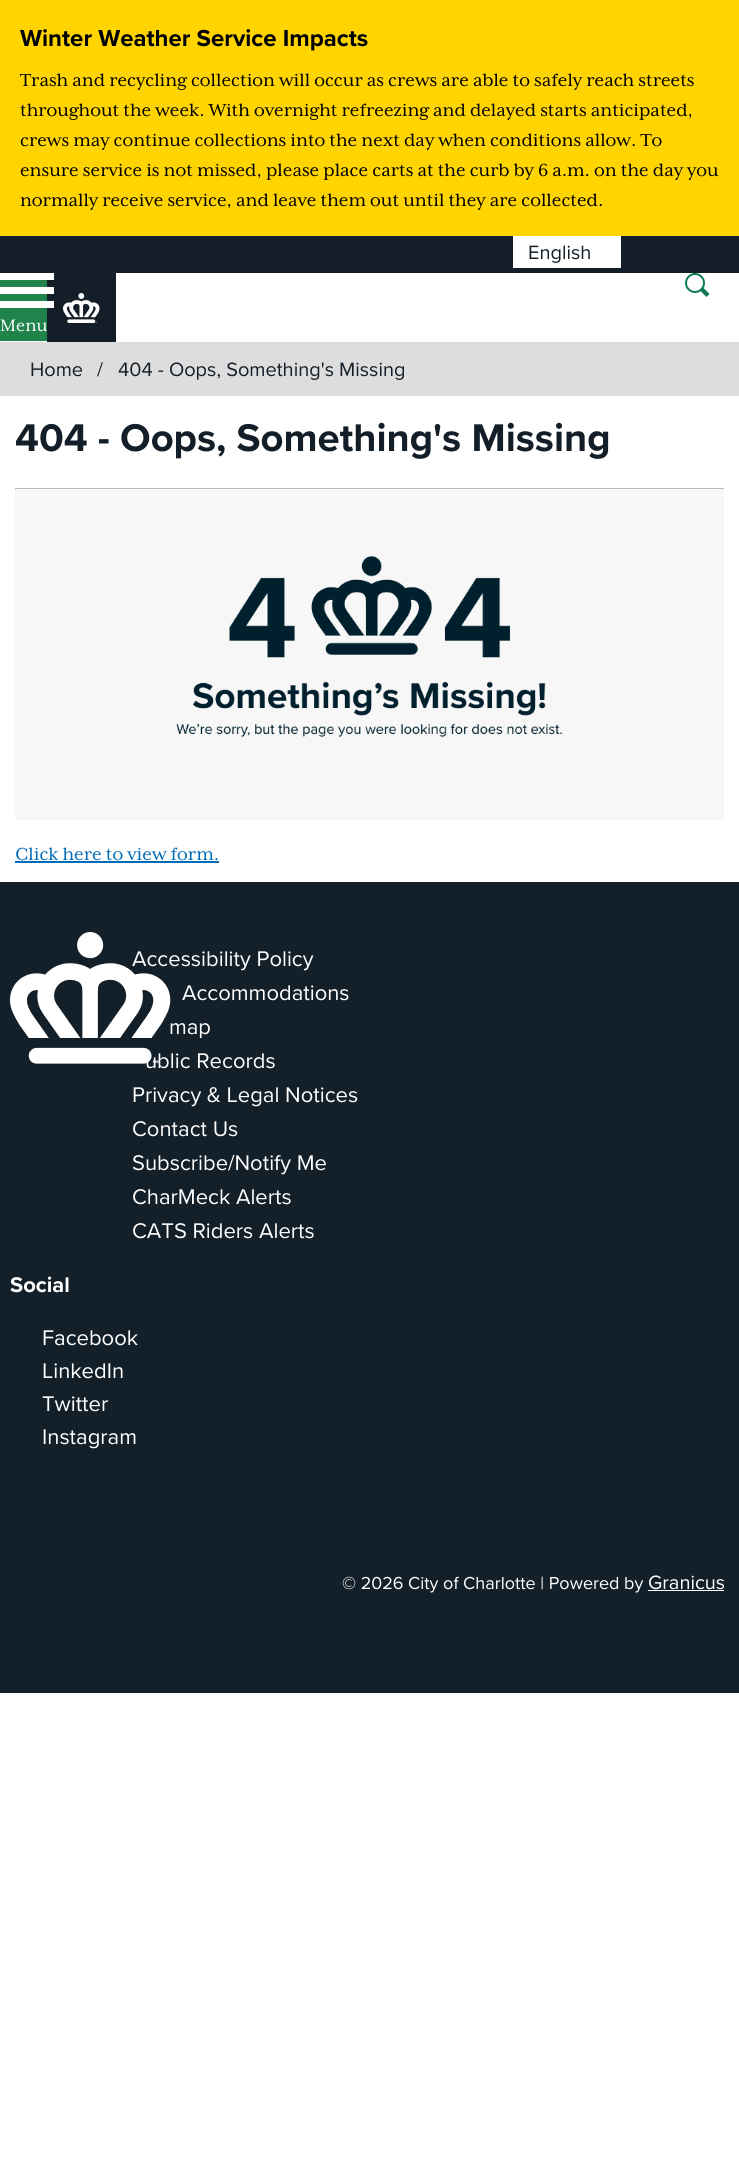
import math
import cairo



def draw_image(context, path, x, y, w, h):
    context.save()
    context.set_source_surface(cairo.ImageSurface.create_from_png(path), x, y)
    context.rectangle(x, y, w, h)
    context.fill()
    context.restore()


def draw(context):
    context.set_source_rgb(1, 1, 1)
    context.paint()
    context.set_source_rgb(1, 212 / 255, 1 / 255)
    context.rectangle(0, 0, 739, 236)
    context.fill()
    context.set_source_rgb(20 / 255, 30 / 255, 40 / 255)
    context.rectangle(0, 236, 739, 37)
    context.fill()
    context.set_source_rgb(1, 1, 1)
    context.rectangle(513, 236, 108, 32)
    context.fill()
    context.set_source_rgb(33 / 255, 131 / 255, 76 / 255)
    context.rectangle(0, 280, 47, 61)
    context.fill()
    draw_image(context, "images/1.png", 47, 273, 69, 69)
    context.set_source_rgb(1, 1, 1)
    context.rectangle(0, 287, 54, 7)
    context.fill()
    context.rectangle(47, 273, 7, 7)
    context.fill()
    context.rectangle(0, 301, 54, 7)
    context.fill()
    context.arc(695, 283, 9, 0, 2 * math.pi)
    context.set_source_rgb(13 / 255, 122 / 255, 84 / 255)
    context.stroke()
    context.new_path()
    context.move_to(702.5, 287)
    context.line_to(709.5, 294)
    context.line_to(706.5, 297)
    context.line_to(699.5, 290)
    context.close_path()
    context.fill()
    context.set_source_rgb(221 / 255, 221 / 255, 221 / 255)
    context.rectangle(0, 342, 739, 54)
    context.fill()
    draw_image(context, "images/2.png", 15, 488, 709, 332)
    context.set_source_rgb(0, 107 / 255, 183 / 255)
    context.rectangle(15, 861, 204, 2)
    context.fill()
    context.set_source_rgb(19 / 255, 31 / 255, 41 / 255)
    context.rectangle(0, 882, 739, 811)
    context.fill()
    draw_image(context, "images/3.png", 10, 932, 161, 132)
    context.set_source_rgb(1, 1, 1)
    context.rectangle(648, 1590, 76, 1)
    context.fill()
    context.select_font_face("Proxima Nova", cairo.FontSlant.NORMAL, cairo.FontWeight.BOLD)
    context.set_font_size(24)
    context.set_source_rgb(0, 0, 0)
    context.move_to(20, 46)
    context.show_text("Winter Weather Service Impacts")
    context.select_font_face("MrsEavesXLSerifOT")
    context.set_font_size(20)
    context.move_to(20, 86)
    context.show_text("Trash and recycling collection will occur as crews are able to safely reach streets")
    context.move_to(20, 116)
    context.show_text("throughout the week. With overnight refreezing and delayed starts anticipated,")
    context.move_to(20, 146)
    context.show_text("crews may continue collections into the next day when conditions allow. To")
    context.move_to(20, 176)
    context.show_text("ensure service is not missed, please place carts at the curb by 6 a.m. on the day you")
    context.move_to(20, 206)
    context.show_text("normally receive service, and leave them out until they are collected.")
    context.select_font_face("Proxima Nova")
    context.set_source_rgb(20 / 255, 30 / 255, 40 / 255)
    context.move_to(528, 259)
    context.show_text("English")
    context.select_font_face("MrsEavesXLSerifOT")
    context.set_font_size(19)
    context.set_source_rgb(1, 1, 1)
    context.move_to(0, 331)
    context.show_text("Menu")
    context.select_font_face("Proxima Nova")
    context.set_font_size(20)
    context.set_source_rgb(20 / 255, 30 / 255, 40 / 255)
    context.move_to(30, 376)
    context.show_text("Home")
    context.move_to(97, 376)
    context.show_text("/")
    context.move_to(118, 376)
    context.show_text("404 - Oops, Something's Missing")
    context.select_font_face("Proxima Nova", cairo.FontSlant.NORMAL, cairo.FontWeight.BOLD)
    context.set_font_size(40)
    context.move_to(15, 451)
    context.show_text("404 - Oops, Something's Missing")
    context.select_font_face("MrsEavesXLSerifOT")
    context.set_font_size(20)
    context.set_source_rgb(0, 107 / 255, 183 / 255)
    context.move_to(15, 860)
    context.show_text("Click here to view form.")
    context.select_font_face("Proxima Nova")
    context.set_font_size(22)
    context.set_source_rgb(1, 1, 1)
    context.move_to(132, 966)
    context.show_text("Accessibility Policy")
    context.move_to(182, 1000)
    context.show_text("Accommodations")
    context.move_to(169, 1034)
    context.show_text("map")
    context.move_to(145, 1068)
    context.show_text("ublic Records")
    context.move_to(132, 1102)
    context.show_text("Privacy & Legal Notices")
    context.move_to(132, 1136)
    context.show_text("Contact Us")
    context.move_to(132, 1170)
    context.show_text("Subscribe/Notify Me")
    context.move_to(132, 1204)
    context.show_text("CharMeck Alerts")
    context.move_to(132, 1238)
    context.show_text("CATS Riders Alerts")
    context.select_font_face("Proxima Nova", cairo.FontSlant.NORMAL, cairo.FontWeight.BOLD)
    context.move_to(10, 1292)
    context.show_text("Social")
    context.select_font_face("Proxima Nova")
    context.move_to(42, 1345)
    context.show_text("Facebook")
    context.move_to(42, 1378)
    context.show_text("LinkedIn")
    context.move_to(42, 1411)
    context.show_text("Twitter")
    context.move_to(42, 1444)
    context.show_text("Instagram")
    context.set_font_size(18)
    context.move_to(342, 1589)
    context.show_text("© 2026 City of Charlotte | Powered by")
    context.set_font_size(20)
    context.move_to(648, 1589)
    context.show_text("Granicus")


surface = cairo.ImageSurface(cairo.Format.RGB24, 739, 2180)
context = cairo.Context(surface)
options = cairo.FontOptions()
options.set_hint_metrics(cairo.HintMetrics.OFF)
options.set_hint_style(cairo.HintStyle.NONE)
context.set_font_options(options)
context.set_miter_limit(4)
draw(context)
surface.write_to_png("out.png")
